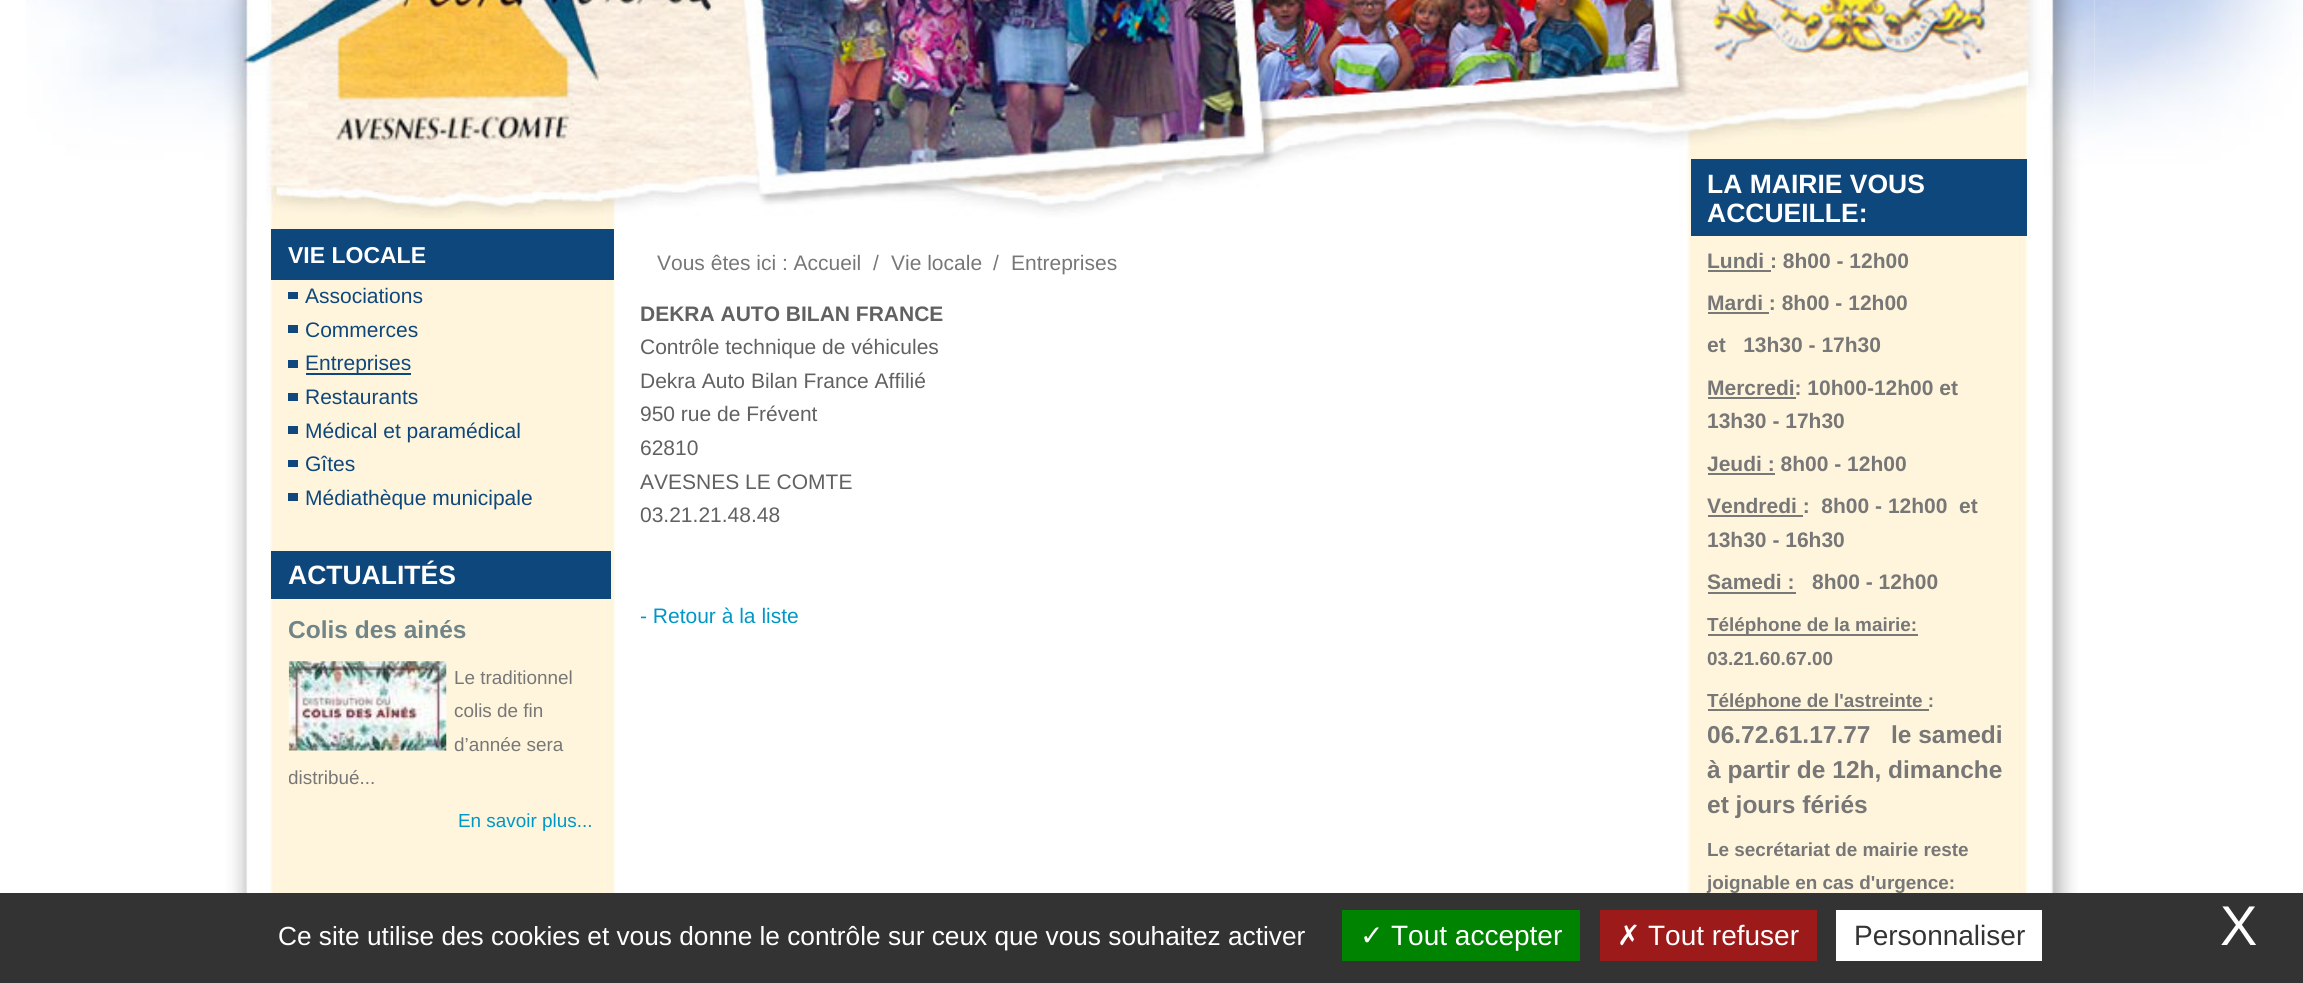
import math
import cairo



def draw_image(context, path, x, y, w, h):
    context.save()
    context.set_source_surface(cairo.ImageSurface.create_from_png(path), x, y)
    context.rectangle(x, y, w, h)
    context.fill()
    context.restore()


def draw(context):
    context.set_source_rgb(1, 1, 1)
    context.paint()
    draw_image(context, "images/1.png", 26, 0, 2277, 221)
    draw_image(context, "images/2.png", 210, 0, 1885, 893)
    draw_image(context, "images/3.png", 210, 0, 1885, 218)
    context.set_source_rgb(14 / 255, 71 / 255, 124 / 255)
    context.rectangle(271, 229, 343, 51)
    context.fill()
    context.set_source_rgb(1, 1, 1)
    context.rectangle(614, 229, 2, 51)
    context.fill()
    context.set_source_rgb(16 / 255, 71 / 255, 125 / 255)
    context.rectangle(288, 292, 10, 7)
    context.fill()
    context.rectangle(288, 325, 10, 8)
    context.fill()
    context.rectangle(288, 360, 10, 8)
    context.fill()
    context.set_source_rgb(14 / 255, 71 / 255, 124 / 255)
    context.rectangle(306, 373, 105, 2)
    context.fill()
    context.set_source_rgb(16 / 255, 71 / 255, 125 / 255)
    context.rectangle(288, 393, 10, 8)
    context.fill()
    context.rectangle(288, 426, 10, 8)
    context.fill()
    context.rectangle(288, 460, 10, 7)
    context.fill()
    context.rectangle(288, 493, 10, 8)
    context.fill()
    context.set_source_rgb(14 / 255, 71 / 255, 124 / 255)
    context.rectangle(271, 551, 340, 48)
    context.fill()
    draw_image(context, "images/4.png", 288, 661, 159, 90)
    context.rectangle(1691, 159, 336, 77)
    context.fill()
    context.set_source_rgb(121 / 255, 121 / 255, 119 / 255)
    context.rectangle(1708, 270, 63, 2)
    context.fill()
    context.rectangle(1708, 312, 61, 2)
    context.fill()
    context.rectangle(1708, 397, 88, 2)
    context.fill()
    context.rectangle(1708, 473, 67, 2)
    context.fill()
    context.rectangle(1708, 515, 95, 2)
    context.fill()
    context.rectangle(1708, 592, 88, 2)
    context.fill()
    context.rectangle(1708, 634, 210, 2)
    context.fill()
    context.rectangle(1708, 709, 221, 2)
    context.fill()
    context.set_source_rgb(51 / 255, 51 / 255, 51 / 255)
    context.rectangle(0, 893, 2303, 90)
    context.fill()
    context.set_source_rgb(0, 131 / 255, 0)
    context.rectangle(1342, 910, 238, 51)
    context.fill()
    context.set_source_rgb(156 / 255, 26 / 255, 26 / 255)
    context.rectangle(1600, 910, 217, 51)
    context.fill()
    context.set_source_rgb(1, 1, 1)
    context.rectangle(1836, 910, 206, 51)
    context.fill()
    context.select_font_face("Liberation Sans", cairo.FontSlant.NORMAL, cairo.FontWeight.BOLD)
    context.set_font_size(23)
    context.move_to(288, 263)
    context.show_text("VIE LOCALE")
    context.select_font_face("Liberation Sans")
    context.set_font_size(21)
    context.set_source_rgb(14 / 255, 71 / 255, 124 / 255)
    context.move_to(305, 303)
    context.show_text("Associations")
    context.move_to(305, 337)
    context.show_text("Commerces")
    context.move_to(305, 370)
    context.show_text("Entreprises")
    context.move_to(305, 404)
    context.show_text("Restaurants")
    context.move_to(305, 438)
    context.show_text("Médical et paramédical")
    context.move_to(305, 471)
    context.show_text("Gîtes")
    context.move_to(305, 505)
    context.show_text("Médiathèque municipale")
    context.select_font_face("Liberation Sans", cairo.FontSlant.NORMAL, cairo.FontWeight.BOLD)
    context.set_font_size(26.5)
    context.set_source_rgb(1, 1, 1)
    context.move_to(288, 584)
    context.show_text("ACTUALITÉS")
    context.set_font_size(24.5)
    context.set_source_rgb(113 / 255, 133 / 255, 137 / 255)
    context.move_to(288, 638)
    context.show_text("Colis des ainés")
    context.select_font_face("Liberation Sans")
    context.set_font_size(18.9)
    context.set_source_rgb(119 / 255, 119 / 255, 119 / 255)
    context.move_to(454, 684)
    context.show_text("Le traditionnel")
    context.move_to(454, 717)
    context.show_text("colis de fin")
    context.move_to(454, 751)
    context.show_text("d’année sera")
    context.save()
    context.rectangle(289, 599, 304, 350)
    context.clip()
    context.move_to(288, 784)
    context.show_text("distribué...")
    context.restore()
    context.set_source_rgb(0, 151 / 255, 199 / 255)
    context.move_to(458, 827)
    context.show_text("En savoir plus...")
    context.set_font_size(21)
    context.set_source_rgb(119 / 255, 119 / 255, 119 / 255)
    context.move_to(657, 270)
    context.show_text("Vous êtes ici : Accueil")
    context.move_to(873, 270)
    context.show_text("/")
    context.move_to(891, 270)
    context.show_text("Vie locale")
    context.move_to(993, 270)
    context.show_text("/")
    context.move_to(1011, 270)
    context.show_text("Entreprises")
    context.select_font_face("Liberation Sans", cairo.FontSlant.NORMAL, cairo.FontWeight.BOLD)
    context.set_source_rgb(97 / 255, 97 / 255, 96 / 255)
    context.move_to(640, 321)
    context.show_text("DEKRA AUTO BILAN FRANCE")
    context.select_font_face("Liberation Sans")
    context.move_to(640, 354)
    context.show_text("Contrôle technique de véhicules")
    context.move_to(640, 388)
    context.show_text("Dekra Auto Bilan France Affilié")
    context.move_to(640, 421)
    context.show_text("950 rue de Frévent")
    context.move_to(640, 455)
    context.show_text("62810")
    context.move_to(640, 489)
    context.show_text("AVESNES LE COMTE")
    context.move_to(640, 522)
    context.show_text("03.21.21.48.48")
    context.set_source_rgb(0, 151 / 255, 199 / 255)
    context.move_to(640, 623)
    context.show_text("- Retour à la liste")
    context.select_font_face("Liberation Sans", cairo.FontSlant.NORMAL, cairo.FontWeight.BOLD)
    context.set_font_size(26.5)
    context.set_source_rgb(1, 1, 1)
    context.move_to(1707, 193)
    context.show_text("LA MAIRIE VOUS")
    context.move_to(1707, 222)
    context.show_text("ACCUEILLE:")
    context.set_font_size(21)
    context.set_source_rgb(119 / 255, 119 / 255, 119 / 255)
    context.move_to(1707, 268)
    context.show_text("Lundi : 8h00 - 12h00")
    context.move_to(1707, 310)
    context.show_text("Mardi : 8h00 - 12h00")
    context.move_to(1707, 352)
    context.show_text("et   13h30 - 17h30")
    context.move_to(1707, 395)
    context.show_text("Mercredi: 10h00-12h00 et")
    context.move_to(1707, 428)
    context.show_text("13h30 - 17h30")
    context.move_to(1707, 471)
    context.show_text("Jeudi : 8h00 - 12h00")
    context.move_to(1707, 513)
    context.show_text("Vendredi :  8h00 - 12h00")
    context.move_to(1959, 513)
    context.show_text("et")
    context.move_to(1707, 547)
    context.show_text("13h30 - 16h30")
    context.move_to(1707, 589)
    context.show_text("Samedi :")
    context.move_to(1812, 589)
    context.show_text("8h00 - 12h00")
    context.set_font_size(18.9)
    context.move_to(1707, 631)
    context.show_text("Téléphone de la mairie:")
    context.move_to(1707, 665)
    context.show_text("03.21.60.67.00")
    context.move_to(1707, 707)
    context.show_text("Téléphone de l'astreinte :")
    context.set_font_size(24.5)
    context.move_to(1707, 743)
    context.show_text("06.72.61.17.77   le samedi")
    context.move_to(1707, 778)
    context.show_text("à partir de 12h, dimanche")
    context.move_to(1707, 813)
    context.show_text("et jours fériés")
    context.set_font_size(18.9)
    context.move_to(1707, 856)
    context.show_text("Le secrétariat de mairie reste")
    context.move_to(1707, 889)
    context.show_text("joignable en cas d'urgence:")
    context.select_font_face("Liberation Sans")
    context.set_font_size(26.25)
    context.set_source_rgb(1, 1, 1)
    context.move_to(278, 945)
    context.show_text("Ce site utilise des cookies et vous donne le contrôle sur ceux que vous souhaitez activer")
    context.select_font_face("DejaVu Sans")
    context.set_font_size(28)
    context.move_to(1360, 945)
    context.show_text("✓")
    context.select_font_face("Liberation Sans")
    context.move_to(1391, 945)
    context.show_text("Tout accepter")
    context.select_font_face("DejaVu Sans")
    context.move_to(1617, 945)
    context.show_text("✗")
    context.select_font_face("Liberation Sans")
    context.move_to(1648, 945)
    context.show_text("Tout refuser")
    context.set_source_rgb(51 / 255, 51 / 255, 51 / 255)
    context.move_to(1854, 945)
    context.show_text("Personnaliser")
    context.set_font_size(56)
    context.set_source_rgb(1, 1, 1)
    context.move_to(2220, 945)
    context.show_text("X")


surface = cairo.ImageSurface(cairo.Format.RGB24, 2303, 983)
context = cairo.Context(surface)
options = cairo.FontOptions()
options.set_hint_metrics(cairo.HintMetrics.OFF)
options.set_hint_style(cairo.HintStyle.NONE)
context.set_font_options(options)
context.set_miter_limit(4)
draw(context)
surface.write_to_png("out.png")
